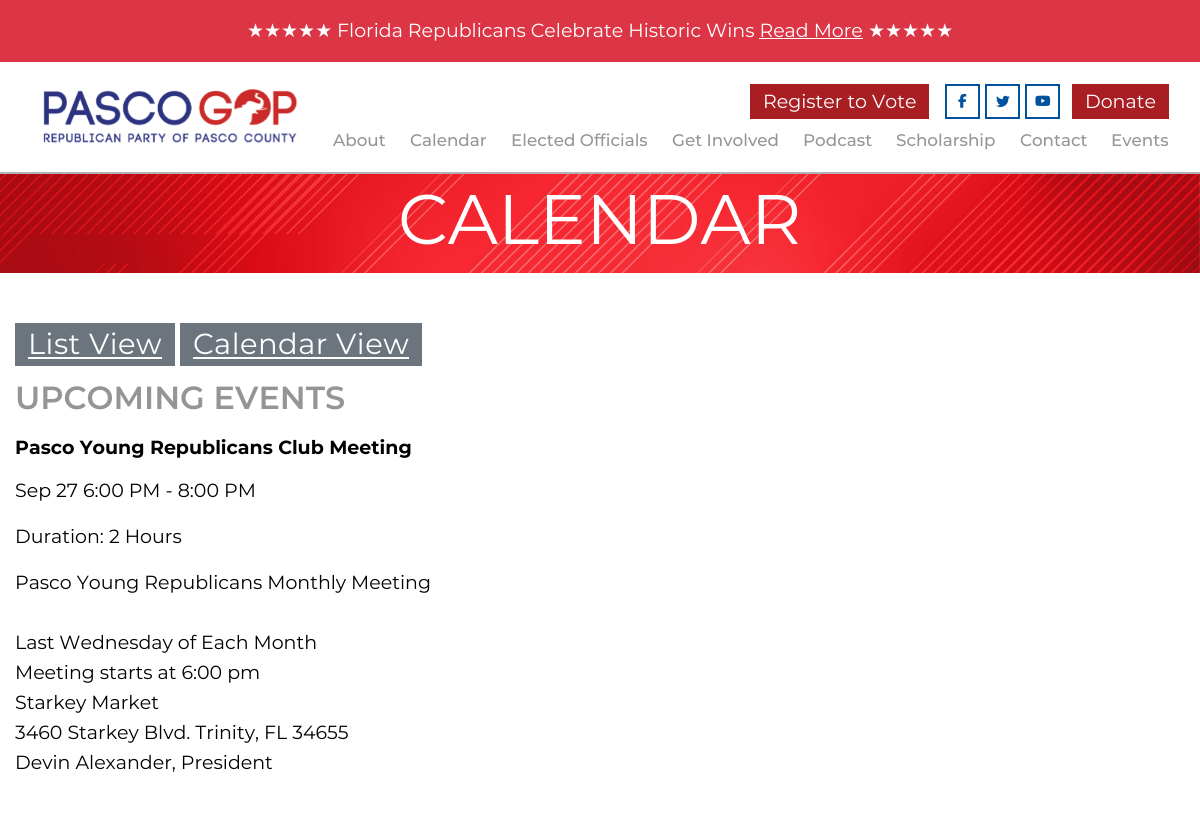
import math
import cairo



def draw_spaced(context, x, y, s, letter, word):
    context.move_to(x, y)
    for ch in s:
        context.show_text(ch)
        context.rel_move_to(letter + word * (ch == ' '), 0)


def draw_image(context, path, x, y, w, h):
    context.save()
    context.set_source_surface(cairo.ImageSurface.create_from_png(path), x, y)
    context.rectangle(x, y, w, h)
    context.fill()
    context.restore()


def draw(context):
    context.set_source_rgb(1, 1, 1)
    context.paint()
    context.set_source_rgb(220 / 255, 53 / 255, 69 / 255)
    context.rectangle(0, 0, 1200, 62)
    context.fill()
    context.set_source_rgb(1, 1, 1)
    context.rectangle(759, 38, 104, 1)
    context.fill()
    context.set_source_rgb(179 / 255, 179 / 255, 179 / 255)
    context.rectangle(0, 172, 1200, 2)
    context.fill()
    draw_image(context, "images/1.png", 43, 89, 255, 54)
    context.set_source_rgb(169 / 255, 30 / 255, 35 / 255)
    context.rectangle(750, 84, 179, 35)
    context.fill()
    context.rectangle(946, 85, 33, 33)
    context.set_source_rgb(0, 82 / 255, 156 / 255)
    context.stroke()
    draw_image(context, "images/2.png", 958, 93, 9, 15)
    context.rectangle(986, 85, 33, 33)
    context.stroke()
    draw_image(context, "images/3.png", 996, 95, 14, 12)
    context.rectangle(1026, 85, 33, 33)
    context.stroke()
    draw_image(context, "images/4.png", 1035, 95, 16, 11)
    context.set_source_rgb(169 / 255, 30 / 255, 35 / 255)
    context.rectangle(1072, 84, 97, 35)
    context.fill()
    draw_image(context, "images/5.png", 0, 174, 1200, 99)
    context.set_source_rgb(108 / 255, 117 / 255, 125 / 255)
    context.rectangle(15, 323, 160, 43)
    context.fill()
    context.set_source_rgb(1, 1, 1)
    context.rectangle(28, 357, 134, 2)
    context.fill()
    context.set_source_rgb(108 / 255, 117 / 255, 125 / 255)
    context.rectangle(180, 323, 242, 43)
    context.fill()
    context.set_source_rgb(1, 1, 1)
    context.rectangle(193, 357, 216, 2)
    context.fill()
    context.select_font_face("DejaVu Sans")
    context.set_font_size(19)
    context.move_to(247, 37)
    context.show_text("★★★★★")
    context.select_font_face("Montserrat")
    context.move_to(337, 37)
    context.show_text("Florida Republicans Celebrate Historic Wins Read More")
    context.select_font_face("DejaVu Sans")
    context.move_to(868, 37)
    context.show_text("★★★★★")
    context.select_font_face("Montserrat")
    context.move_to(763, 108)
    context.show_text("Register to Vote")
    context.move_to(1085, 108)
    context.show_text("Donate")
    context.select_font_face("Montserrat Medium")
    context.set_font_size(16.75)
    context.set_source_rgb(149 / 255, 149 / 255, 149 / 255)
    context.move_to(333, 146)
    context.show_text("About")
    context.move_to(410, 146)
    context.show_text("Calendar")
    context.move_to(511, 146)
    context.show_text("Elected Officials")
    context.move_to(672, 146)
    context.show_text("Get Involved")
    context.move_to(803, 146)
    context.show_text("Podcast")
    context.move_to(896, 146)
    context.show_text("Scholarship")
    context.move_to(1020, 146)
    context.show_text("Contact")
    context.move_to(1111, 146)
    context.show_text("Events")
    context.select_font_face("Montserrat")
    context.set_font_size(70)
    context.set_source_rgb(1, 1, 1)
    context.move_to(398, 244)
    context.show_text("CALENDAR")
    context.set_font_size(29)
    draw_spaced(context, 28, 354, "List View", 0.5, 0)
    draw_spaced(context, 193, 354, "Calendar View", 0.5, 0)
    context.select_font_face("Montserrat SemiBold")
    context.set_font_size(32)
    context.set_source_rgb(149 / 255, 149 / 255, 149 / 255)
    context.move_to(15, 409)
    context.show_text("UPCOMING EVENTS")
    context.select_font_face("Montserrat", cairo.FontSlant.NORMAL, cairo.FontWeight.BOLD)
    context.set_font_size(19)
    context.set_source_rgb(0, 0, 0)
    context.move_to(15, 454)
    context.show_text("Pasco Young Republicans Club Meeting")
    context.select_font_face("Montserrat")
    context.move_to(15, 497)
    context.show_text("Sep 27 6:00 PM - 8:00 PM")
    context.move_to(15, 543)
    context.show_text("Duration: 2 Hours")
    context.move_to(15, 589)
    context.show_text("Pasco Young Republicans Monthly Meeting")
    context.move_to(15, 649)
    context.show_text("Last Wednesday of Each Month")
    context.move_to(15, 679)
    context.show_text("Meeting starts at 6:00 pm")
    context.move_to(15, 709)
    context.show_text("Starkey Market")
    context.move_to(15, 739)
    context.show_text("3460 Starkey Blvd. Trinity, FL 34655")
    context.move_to(15, 769)
    context.show_text("Devin Alexander, President")


surface = cairo.ImageSurface(cairo.Format.RGB24, 1200, 822)
context = cairo.Context(surface)
options = cairo.FontOptions()
options.set_hint_metrics(cairo.HintMetrics.OFF)
options.set_hint_style(cairo.HintStyle.NONE)
context.set_font_options(options)
context.set_miter_limit(4)
draw(context)
surface.write_to_png("out.png")
